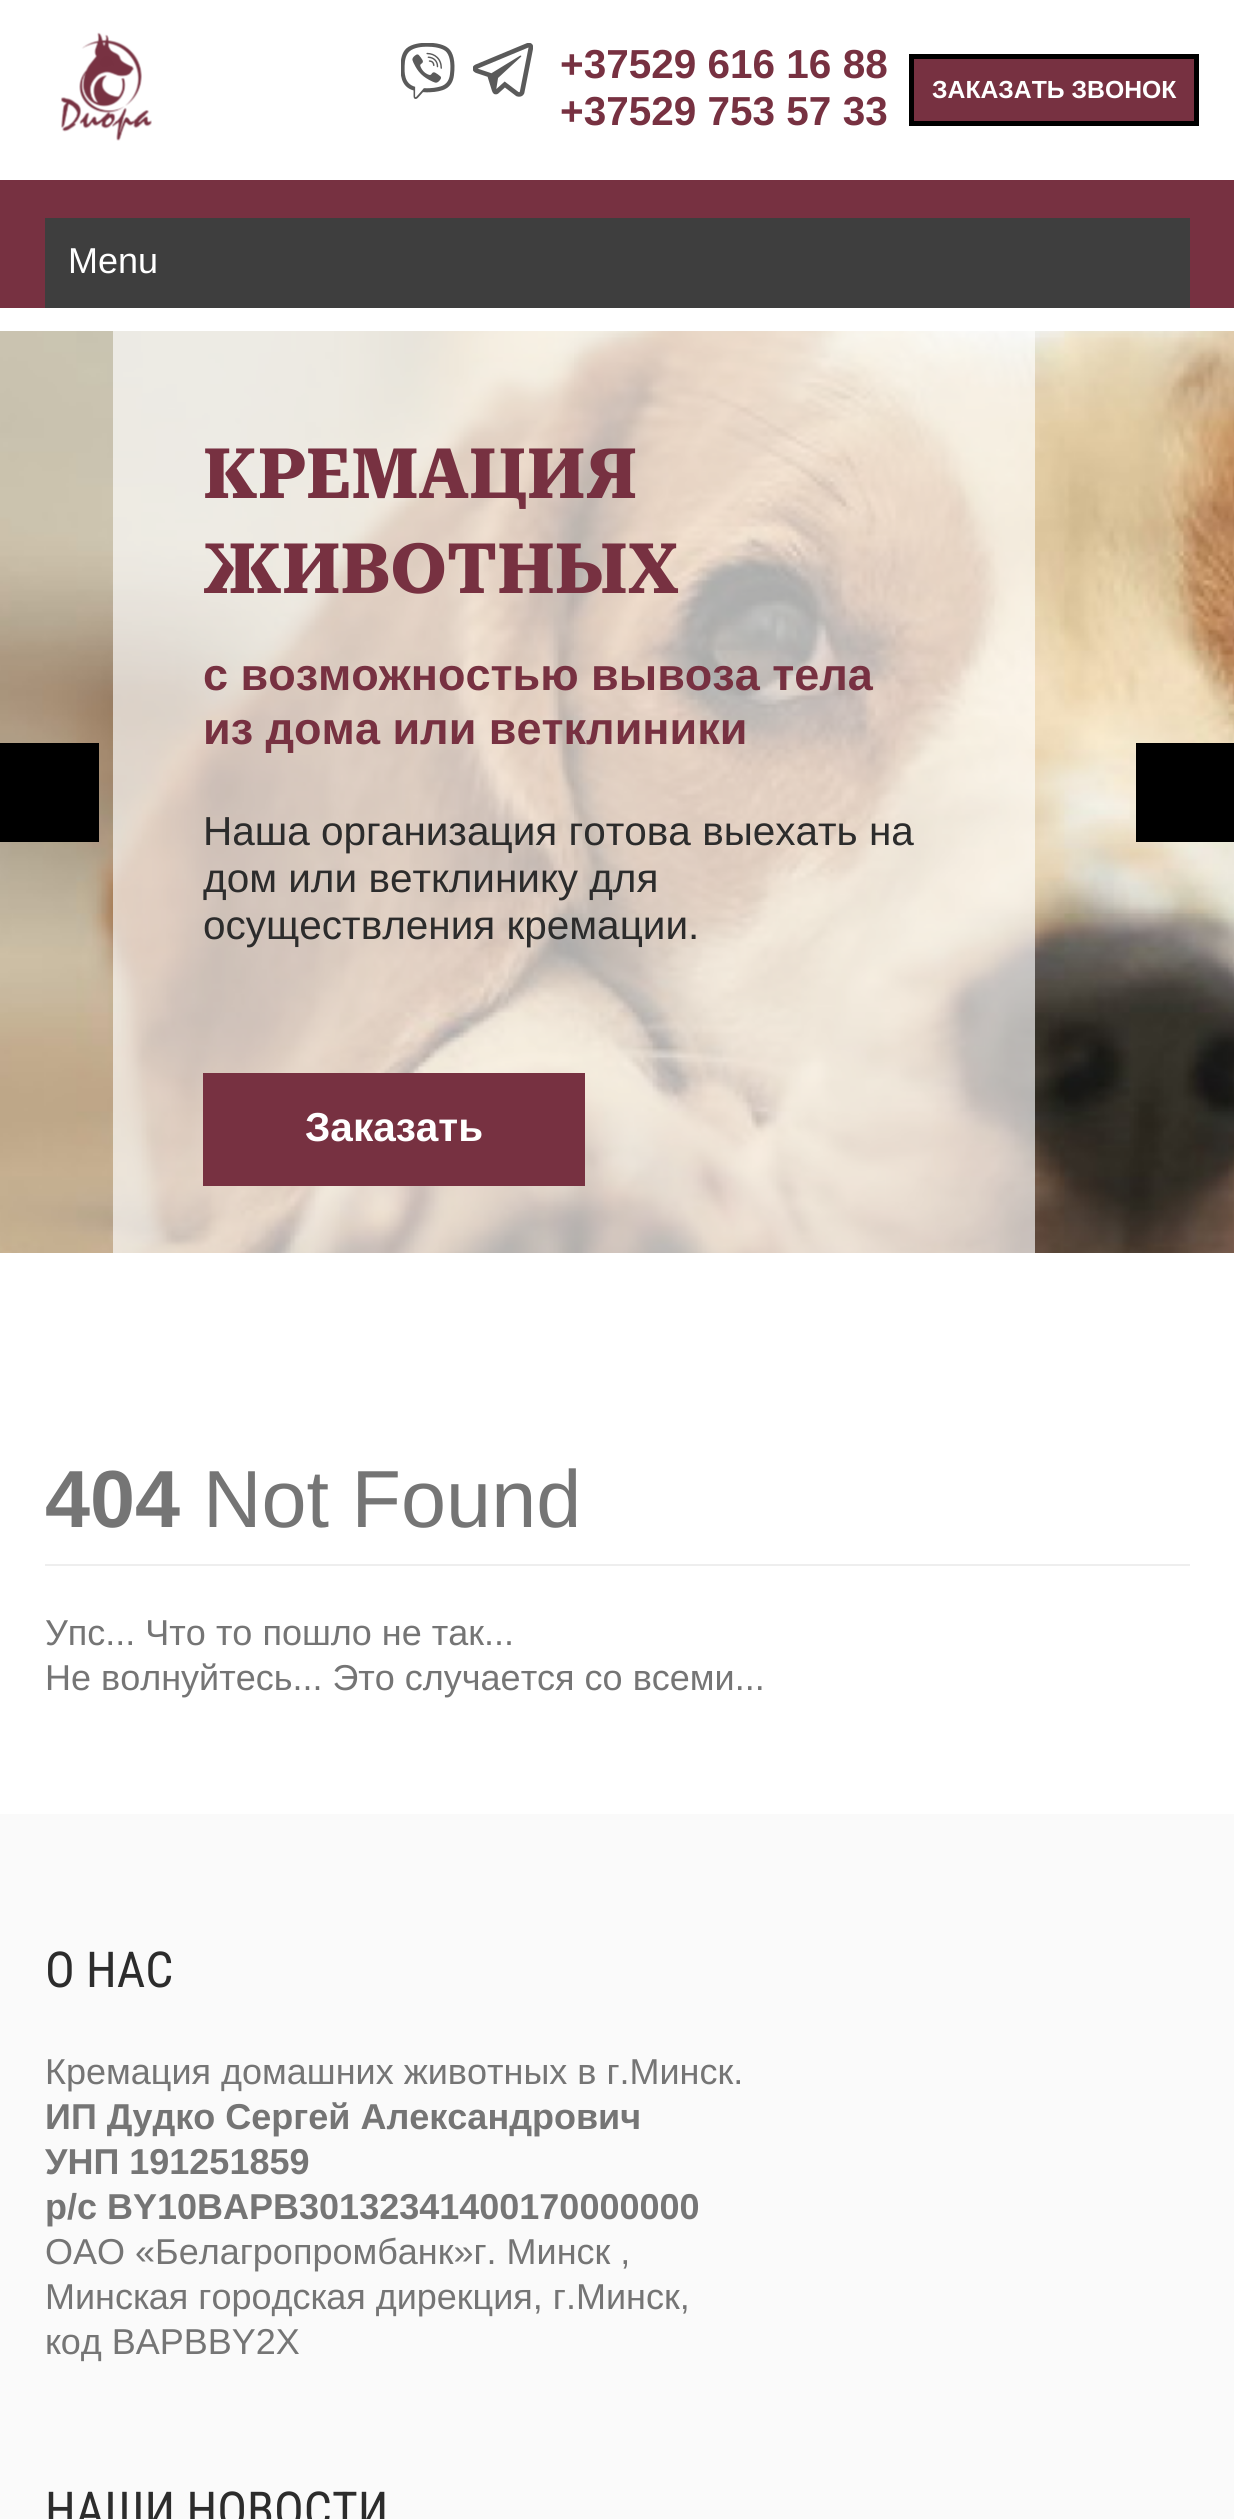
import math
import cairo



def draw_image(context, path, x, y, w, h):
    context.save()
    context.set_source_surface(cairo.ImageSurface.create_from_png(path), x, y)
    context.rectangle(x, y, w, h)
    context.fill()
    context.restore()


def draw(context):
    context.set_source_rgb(1, 1, 1)
    context.paint()
    draw_image(context, "images/1.png", 60, 32, 92, 109)
    draw_image(context, "images/2.png", 401, 43, 54, 56)
    draw_image(context, "images/3.png", 473, 43, 60, 54)
    context.set_source_rgb(119 / 255, 49 / 255, 65 / 255)
    context.rectangle(911.5, 56.5, 285, 67)
    context.fill_preserve()
    context.set_source_rgb(0, 0, 0)
    context.set_line_width(5)
    context.stroke()
    context.set_source_rgb(119 / 255, 49 / 255, 65 / 255)
    context.rectangle(0, 180, 1234, 128)
    context.fill()
    context.set_source_rgb(62 / 255, 62 / 255, 62 / 255)
    context.rectangle(45, 218, 1145, 90)
    context.fill()
    draw_image(context, "images/4.png", 0, 331, 1234, 922)
    context.set_source_rgb(0, 0, 0)
    context.rectangle(0, 743, 99, 99)
    context.fill()
    context.set_source_rgba(1, 1, 1, 0.65)
    context.rectangle(113, 331, 922, 922)
    context.fill()
    context.set_source_rgb(119 / 255, 49 / 255, 65 / 255)
    context.rectangle(203, 1073, 382, 113)
    context.fill()
    context.set_source_rgb(0, 0, 0)
    context.rectangle(1136, 743, 98, 99)
    context.fill()
    context.set_source_rgb(238 / 255, 238 / 255, 238 / 255)
    context.rectangle(45, 1564, 1145, 2)
    context.fill()
    context.set_source_rgb(250 / 255, 250 / 255, 250 / 255)
    context.rectangle(0, 1814, 1234, 705)
    context.fill()
    context.select_font_face("Liberation Sans", cairo.FontSlant.NORMAL, cairo.FontWeight.BOLD)
    context.set_font_size(40.5)
    context.set_source_rgb(119 / 255, 49 / 255, 65 / 255)
    context.move_to(560, 78)
    context.show_text("+37529 616 16 88")
    context.move_to(560, 125)
    context.show_text("+37529 753 57 33")
    context.set_font_size(24.75)
    context.set_source_rgb(1, 1, 1)
    context.move_to(932, 98)
    context.show_text("ЗАКАЗАТЬ ЗВОНОК")
    context.select_font_face("Liberation Sans")
    context.set_font_size(36)
    context.move_to(68, 273)
    context.show_text("Menu")
    context.select_font_face("Roboto Serif", cairo.FontSlant.NORMAL, cairo.FontWeight.BOLD)
    context.set_font_size(69.75)
    context.set_source_rgb(119 / 255, 49 / 255, 65 / 255)
    context.move_to(203, 498)
    context.show_text("КРЕМАЦИЯ")
    context.move_to(203, 593)
    context.show_text("ЖИВОТНЫХ")
    context.select_font_face("Liberation Sans", cairo.FontSlant.NORMAL, cairo.FontWeight.BOLD)
    context.set_font_size(45)
    context.move_to(203, 690)
    context.show_text("с возможностью вывоза тела")
    context.move_to(203, 744)
    context.show_text("из дома или ветклиники")
    context.select_font_face("Liberation Sans")
    context.set_font_size(40.5)
    context.set_source_rgb(44 / 255, 44 / 255, 44 / 255)
    context.move_to(203, 845)
    context.show_text("Наша организация готова выехать на")
    context.move_to(203, 892)
    context.show_text("дом или ветклинику для")
    context.move_to(203, 939)
    context.show_text("осуществления кремации.")
    context.select_font_face("Liberation Sans", cairo.FontSlant.NORMAL, cairo.FontWeight.BOLD)
    context.set_source_rgb(1, 1, 1)
    context.move_to(305, 1141)
    context.show_text("Заказать")
    context.set_font_size(81)
    context.set_source_rgb(117 / 255, 117 / 255, 117 / 255)
    context.move_to(45, 1527)
    context.show_text("404")
    context.select_font_face("Liberation Sans")
    context.move_to(203, 1527)
    context.show_text("Not Found")
    context.set_font_size(36)
    context.move_to(45, 1645)
    context.show_text("Упс... Что то пошло не так...")
    context.move_to(45, 1690)
    context.show_text("Не волнуйтесь... Это случается со всеми...")
    context.select_font_face("Roboto Condensed")
    context.set_font_size(49.5)
    context.set_source_rgb(44 / 255, 44 / 255, 44 / 255)
    context.move_to(45, 1987)
    context.show_text("О НАС")
    context.select_font_face("Liberation Sans")
    context.set_font_size(36)
    context.set_source_rgb(117 / 255, 117 / 255, 117 / 255)
    context.move_to(45, 2084)
    context.show_text("Кремация домашних животных в г.Минск.")
    context.select_font_face("Liberation Sans", cairo.FontSlant.NORMAL, cairo.FontWeight.BOLD)
    context.move_to(45, 2129)
    context.show_text("ИП Дудко Сергей Александрович")
    context.move_to(45, 2174)
    context.show_text("УНП 191251859")
    context.move_to(45, 2219)
    context.show_text("р/с BY10BAPB30132341400170000000")
    context.select_font_face("Liberation Sans")
    context.move_to(45, 2264)
    context.show_text("ОАО «Белагропромбанк»г. Минск ,")
    context.move_to(45, 2309)
    context.show_text("Минская городская дирекция, г.Минск,")
    context.move_to(45, 2354)
    context.show_text("код BAPBBY2X")
    context.select_font_face("Roboto Condensed")
    context.set_font_size(49.5)
    context.set_source_rgb(44 / 255, 44 / 255, 44 / 255)
    context.move_to(45, 2527)
    context.show_text("НАШИ НОВОСТИ")


surface = cairo.ImageSurface(cairo.Format.RGB24, 1234, 2519)
context = cairo.Context(surface)
options = cairo.FontOptions()
options.set_hint_metrics(cairo.HintMetrics.OFF)
options.set_hint_style(cairo.HintStyle.NONE)
context.set_font_options(options)
context.set_miter_limit(4)
draw(context)
surface.write_to_png("out.png")
